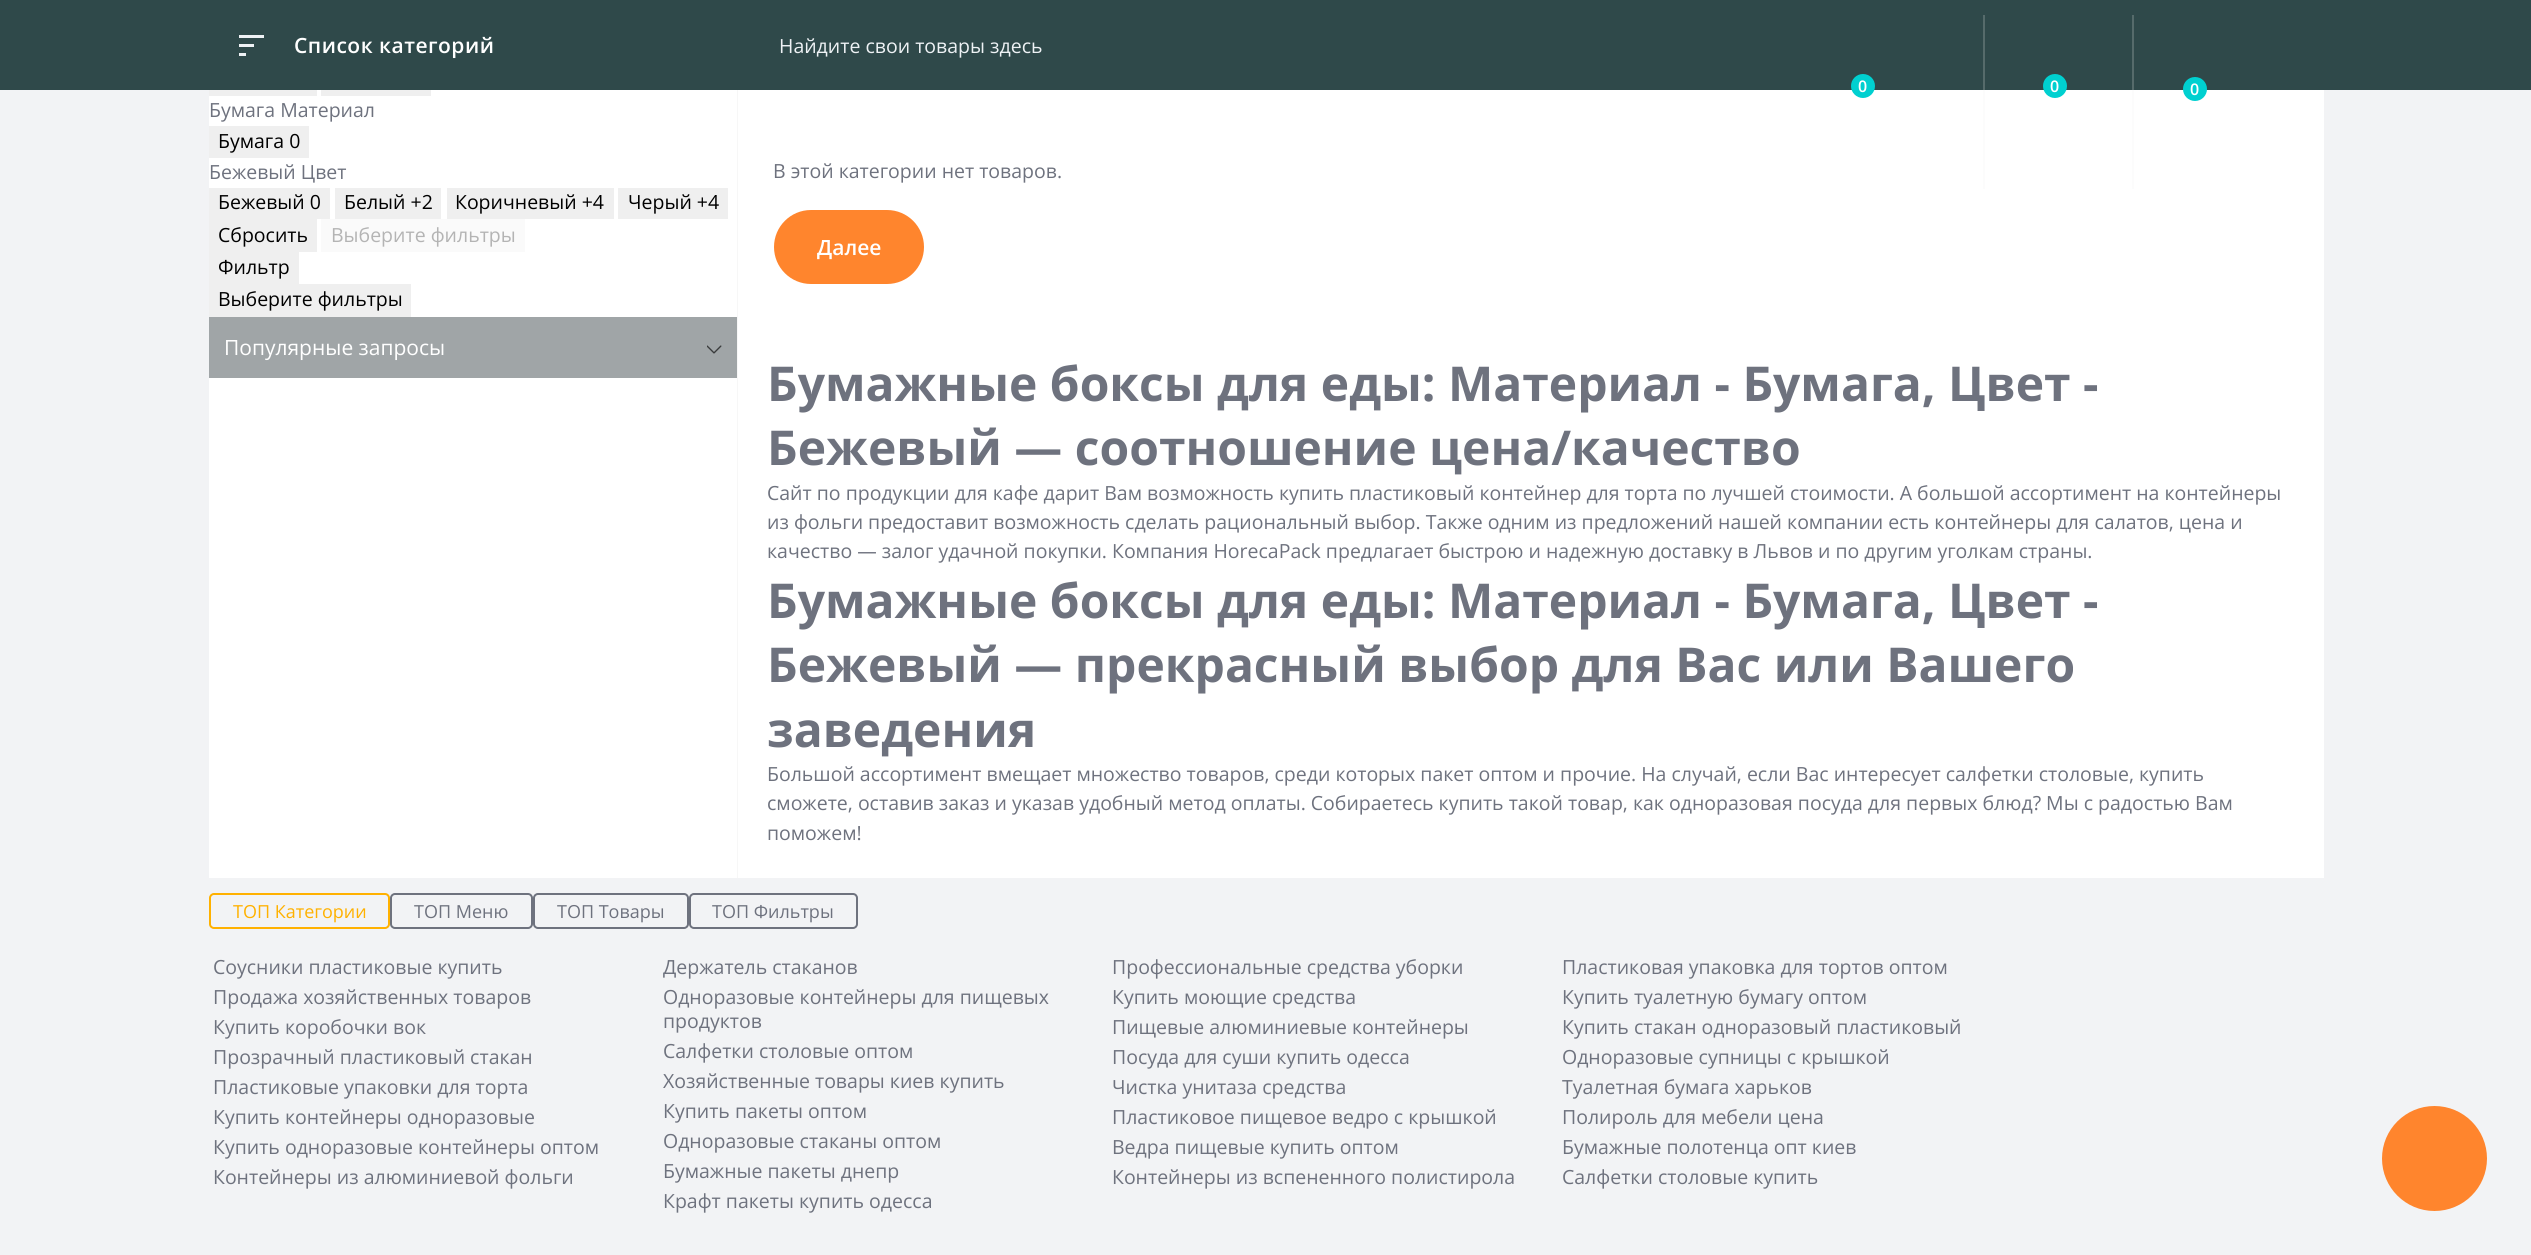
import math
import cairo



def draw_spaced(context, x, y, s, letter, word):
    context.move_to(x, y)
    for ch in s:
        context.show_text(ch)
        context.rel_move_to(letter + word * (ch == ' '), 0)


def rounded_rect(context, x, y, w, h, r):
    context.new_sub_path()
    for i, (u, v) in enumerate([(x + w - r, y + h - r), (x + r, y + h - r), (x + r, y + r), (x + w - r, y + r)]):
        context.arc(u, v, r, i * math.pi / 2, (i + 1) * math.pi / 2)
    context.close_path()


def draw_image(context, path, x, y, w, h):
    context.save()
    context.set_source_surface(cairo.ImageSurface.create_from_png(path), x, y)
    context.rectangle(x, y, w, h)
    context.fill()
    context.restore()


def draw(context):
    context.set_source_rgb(242 / 255, 243 / 255, 245 / 255)
    context.paint()
    context.set_source_rgb(47 / 255, 73 / 255, 74 / 255)
    context.rectangle(0, 0, 2531, 90)
    context.fill()
    context.set_source_rgb(86 / 255, 107 / 255, 107 / 255)
    context.rectangle(2132, 15, 2, 75)
    context.fill()
    context.rectangle(1983, 15, 2, 75)
    context.fill()
    context.set_source_rgb(238 / 255, 242 / 255, 245 / 255)
    context.rectangle(239, 35, 25, 3)
    context.fill()
    context.rectangle(239, 44, 15, 3)
    context.fill()
    context.rectangle(239, 53, 7, 3)
    context.fill()
    context.set_source_rgb(1, 1, 1)
    context.rectangle(738, 90, 1586, 788)
    context.fill()
    context.set_source_rgb(0, 208 / 255, 208 / 255)
    context.arc(1863, 86, 12, 0, 2 * math.pi)
    context.fill()
    context.arc(2055, 86, 12, 0, 2 * math.pi)
    context.fill()
    context.arc(2195, 89, 12, 0, 2 * math.pi)
    context.fill()
    context.set_source_rgb(1, 1, 1)
    context.rectangle(209, 90, 528, 788)
    context.fill()
    context.set_source_rgb(247 / 255, 247 / 255, 247 / 255)
    context.rectangle(737, 90, 1, 788)
    context.fill()
    context.set_source_rgb(239 / 255, 239 / 255, 239 / 255)
    context.rectangle(209, 90, 108, 6)
    context.fill()
    context.rectangle(321, 90, 110, 6)
    context.fill()
    context.rectangle(209, 126, 100, 32)
    context.fill()
    context.rectangle(209, 188, 121, 31)
    context.fill()
    context.rectangle(335, 188, 106, 31)
    context.fill()
    context.rectangle(447, 188, 167, 31)
    context.fill()
    context.rectangle(618, 188, 110, 31)
    context.fill()
    context.rectangle(209, 219, 108, 33)
    context.fill()
    context.set_source_rgb(250 / 255, 250 / 255, 250 / 255)
    context.rectangle(321, 219, 204, 33)
    context.fill()
    context.set_source_rgb(239 / 255, 239 / 255, 239 / 255)
    context.rectangle(209, 252, 90, 32)
    context.fill()
    context.rectangle(209, 284, 202, 33)
    context.fill()
    context.set_source_rgb(160 / 255, 165 / 255, 167 / 255)
    context.rectangle(209, 317, 528, 61)
    context.fill()
    draw_image(context, "images/1.png", 707, 345, 15, 9)
    context.set_source_rgb(252 / 255, 252 / 255, 252 / 255)
    context.rectangle(2132, 90, 2, 99)
    context.fill()
    context.rectangle(1983, 90, 2, 99)
    context.fill()
    context.set_source_rgb(1, 133 / 255, 45 / 255)
    rounded_rect(context, 774, 210, 150, 74, 37)
    context.fill()
    rounded_rect(context, 210, 894, 179, 34, 4)
    context.set_source_rgb(1, 177 / 255, 0)
    context.stroke()
    rounded_rect(context, 391, 894, 141, 34, 4)
    context.set_source_rgb(110 / 255, 114 / 255, 126 / 255)
    context.stroke()
    rounded_rect(context, 534, 894, 154, 34, 4)
    context.stroke()
    rounded_rect(context, 690, 894, 167, 34, 4)
    context.stroke()
    context.set_source_rgb(1, 133 / 255, 45 / 255)
    context.arc(2434.5, 1158.5, 52.5, 0, 2 * math.pi)
    context.fill()
    context.select_font_face("Open Sans SemiBold")
    context.set_font_size(21)
    context.set_source_rgb(1, 1, 1)
    draw_spaced(context, 294, 53, "Список категорий", 0.5, 0)
    context.select_font_face("Open Sans")
    context.set_font_size(19.5)
    context.set_source_rgb(238 / 255, 242 / 255, 245 / 255)
    context.move_to(779, 53)
    context.show_text("Найдите свои товары здесь")
    context.select_font_face("Open Sans SemiBold")
    context.set_font_size(16)
    context.set_source_rgb(1, 1, 1)
    context.move_to(1858, 92)
    context.show_text("0")
    context.move_to(2050, 92)
    context.show_text("0")
    context.move_to(2190, 95)
    context.show_text("0")
    context.select_font_face("Open Sans")
    context.set_font_size(19.5)
    context.set_source_rgb(110 / 255, 114 / 255, 126 / 255)
    context.move_to(209, 117)
    context.show_text("Бумага Материал")
    context.set_source_rgb(0, 0, 0)
    context.move_to(218, 148)
    context.show_text("Бумага 0")
    context.set_source_rgb(110 / 255, 114 / 255, 126 / 255)
    context.move_to(209, 179)
    context.show_text("Бежевый Цвет")
    context.set_source_rgb(0, 0, 0)
    context.move_to(218, 209)
    context.show_text("Бежевый 0")
    context.move_to(344, 209)
    context.show_text("Белый +2")
    context.move_to(455, 209)
    context.show_text("Коричневый +4")
    context.move_to(628, 209)
    context.show_text("Черый +4")
    context.move_to(218, 242)
    context.show_text("Сбросить")
    context.set_source_rgb(180 / 255, 180 / 255, 180 / 255)
    context.move_to(331, 242)
    context.show_text("Выберите фильтры")
    context.set_source_rgb(0, 0, 0)
    context.move_to(218, 274)
    context.show_text("Фильтр")
    context.move_to(218, 306)
    context.show_text("Выберите фильтры")
    context.set_font_size(21)
    context.set_source_rgb(1, 1, 1)
    context.move_to(224, 355)
    context.show_text("Популярные запросы")
    context.set_font_size(19.5)
    context.set_source_rgb(110 / 255, 114 / 255, 126 / 255)
    context.move_to(773, 178)
    context.show_text("В этой категории нет товаров.")
    context.select_font_face("Open Sans SemiBold")
    context.set_font_size(21)
    context.set_source_rgb(1, 1, 1)
    context.move_to(817, 255)
    context.show_text("Далее")
    context.select_font_face("Open Sans", cairo.FontSlant.NORMAL, cairo.FontWeight.BOLD)
    context.set_font_size(48)
    context.set_source_rgb(110 / 255, 114 / 255, 126 / 255)
    context.move_to(767, 401)
    context.show_text("Бумажные боксы для еды: Материал - Бумага, Цвет -")
    context.move_to(767, 465)
    context.show_text("Бежевый — соотношение цена/качество")
    context.select_font_face("Open Sans")
    context.set_font_size(19.5)
    context.move_to(767, 500)
    context.show_text("Сайт по продукции для кафе дарит Вам возможность купить пластиковый контейнер для торта по лучшей стоимости. А большой ассортимент на контейнеры")
    context.move_to(767, 529)
    context.show_text("из фольги предоставит возможность сделать рациональный выбор. Также одним из предложений нашей компании есть контейнеры для салатов, цена и")
    context.move_to(767, 558)
    context.show_text("качество — залог удачной покупки. Компания HorecaPack предлагает быстрою и надежную доставку в Львов и по другим уголкам страны.")
    context.select_font_face("Open Sans", cairo.FontSlant.NORMAL, cairo.FontWeight.BOLD)
    context.set_font_size(48)
    context.move_to(767, 618)
    context.show_text("Бумажные боксы для еды: Материал - Бумага, Цвет -")
    context.move_to(767, 682)
    context.show_text("Бежевый — прекрасный выбор для Вас или Вашего")
    context.move_to(767, 747)
    context.show_text("заведения")
    context.select_font_face("Open Sans")
    context.set_font_size(19.5)
    context.move_to(767, 781)
    context.show_text("Большой ассортимент вмещает множество товаров, среди которых пакет оптом и прочие. На случай, если Вас интересует салфетки столовые, купить")
    context.move_to(767, 810)
    context.show_text("сможете, оставив заказ и указав удобный метод оплаты. Собираетесь купить такой товар, как одноразовая посуда для первых блюд? Мы с радостью Вам")
    context.move_to(767, 840)
    context.show_text("поможем!")
    context.set_font_size(18)
    context.set_source_rgb(1, 177 / 255, 0)
    context.move_to(233, 918)
    context.show_text("ТОП Категории")
    context.set_source_rgb(110 / 255, 114 / 255, 126 / 255)
    context.move_to(414, 918)
    context.show_text("ТОП Меню")
    context.move_to(557, 918)
    context.show_text("ТОП Товары")
    context.move_to(712, 918)
    context.show_text("ТОП Фильтры")
    context.set_font_size(19.5)
    context.move_to(213, 974)
    context.show_text("Соусники пластиковые купить")
    context.move_to(213, 1004)
    context.show_text("Продажа хозяйственных товаров")
    context.move_to(213, 1034)
    context.show_text("Купить коробочки вок")
    context.move_to(213, 1064)
    context.show_text("Прозрачный пластиковый стакан")
    context.move_to(213, 1094)
    context.show_text("Пластиковые упаковки для торта")
    context.move_to(213, 1124)
    context.show_text("Купить контейнеры одноразовые")
    context.move_to(213, 1154)
    context.show_text("Купить одноразовые контейнеры оптом")
    context.move_to(213, 1184)
    context.show_text("Контейнеры из алюминиевой фольги")
    context.move_to(663, 974)
    context.show_text("Держатель стаканов")
    context.move_to(663, 1004)
    context.show_text("Одноразовые контейнеры для пищевых")
    context.move_to(663, 1028)
    context.show_text("продуктов")
    context.move_to(663, 1058)
    context.show_text("Салфетки столовые оптом")
    context.move_to(663, 1088)
    context.show_text("Хозяйственные товары киев купить")
    context.move_to(663, 1118)
    context.show_text("Купить пакеты оптом")
    context.move_to(663, 1148)
    context.show_text("Одноразовые стаканы оптом")
    context.move_to(663, 1178)
    context.show_text("Бумажные пакеты днепр")
    context.move_to(663, 1208)
    context.show_text("Крафт пакеты купить одесса")
    context.move_to(1112, 974)
    context.show_text("Профессиональные средства уборки")
    context.move_to(1112, 1004)
    context.show_text("Купить моющие средства")
    context.move_to(1112, 1034)
    context.show_text("Пищевые алюминиевые контейнеры")
    context.move_to(1112, 1064)
    context.show_text("Посуда для суши купить одесса")
    context.move_to(1112, 1094)
    context.show_text("Чистка унитаза средства")
    context.move_to(1112, 1124)
    context.show_text("Пластиковое пищевое ведро с крышкой")
    context.move_to(1112, 1154)
    context.show_text("Ведра пищевые купить оптом")
    context.move_to(1112, 1184)
    context.show_text("Контейнеры из вспененного полистирола")
    context.move_to(1562, 974)
    context.show_text("Пластиковая упаковка для тортов оптом")
    context.move_to(1562, 1004)
    context.show_text("Купить туалетную бумагу оптом")
    context.move_to(1562, 1034)
    context.show_text("Купить стакан одноразовый пластиковый")
    context.move_to(1562, 1064)
    context.show_text("Одноразовые супницы с крышкой")
    context.move_to(1562, 1094)
    context.show_text("Туалетная бумага харьков")
    context.move_to(1562, 1124)
    context.show_text("Полироль для мебели цена")
    context.move_to(1562, 1154)
    context.show_text("Бумажные полотенца опт киев")
    context.move_to(1562, 1184)
    context.show_text("Салфетки столовые купить")


surface = cairo.ImageSurface(cairo.Format.RGB24, 2531, 1255)
context = cairo.Context(surface)
options = cairo.FontOptions()
options.set_hint_metrics(cairo.HintMetrics.OFF)
options.set_hint_style(cairo.HintStyle.NONE)
context.set_font_options(options)
context.set_miter_limit(4)
draw(context)
surface.write_to_png("out.png")
